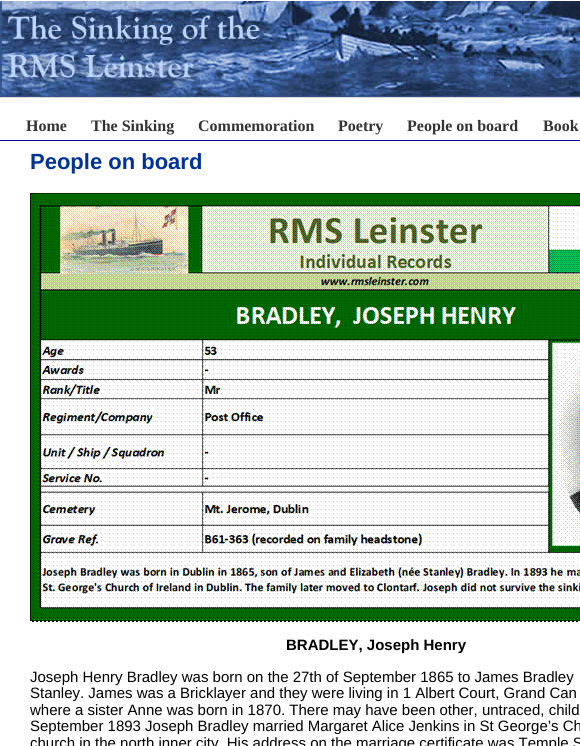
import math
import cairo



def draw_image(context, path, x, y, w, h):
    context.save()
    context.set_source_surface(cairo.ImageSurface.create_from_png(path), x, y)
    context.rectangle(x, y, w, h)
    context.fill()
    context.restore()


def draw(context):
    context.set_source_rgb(1, 1, 1)
    context.paint()
    draw_image(context, "images/1.png", 0, 1, 302, 97)
    draw_image(context, "images/2.png", 302, 1, 196, 97)
    draw_image(context, "images/3.png", 498, 1, 82, 62)
    draw_image(context, "images/4.png", 498, 63, 82, 36)
    context.set_source_rgb(0, 0, 153 / 255)
    context.rectangle(0, 140, 580, 1)
    context.fill()
    draw_image(context, "images/5.png", 30, 193, 550, 429)
    context.select_font_face("Liberation Serif", cairo.FontSlant.NORMAL, cairo.FontWeight.BOLD)
    context.set_font_size(16)
    context.set_source_rgb(51 / 255, 51 / 255, 51 / 255)
    context.move_to(26, 131)
    context.show_text("Home")
    context.move_to(91, 131)
    context.show_text("The Sinking")
    context.move_to(198, 131)
    context.show_text("Commemoration")
    context.move_to(338, 131)
    context.show_text("Poetry")
    context.move_to(407, 131)
    context.show_text("People on board")
    context.move_to(543, 131)
    context.show_text("Book")
    context.select_font_face("Liberation Sans", cairo.FontSlant.NORMAL, cairo.FontWeight.BOLD)
    context.set_font_size(22)
    context.set_source_rgb(0, 51 / 255, 153 / 255)
    context.move_to(30, 169)
    context.show_text("People on board")
    context.set_font_size(15)
    context.set_source_rgb(0, 0, 0)
    context.move_to(286, 650)
    context.show_text("BRADLEY, Joseph Henry")
    context.select_font_face("Liberation Sans")
    context.move_to(30, 682)
    context.show_text("Joseph Henry Bradley was born on the 27th of September 1865 to James Bradley")
    context.move_to(30, 698)
    context.show_text("Stanley. James was a Bricklayer and they were living in 1 Albert Court, Grand Can")
    context.move_to(30, 715)
    context.show_text("where a sister Anne was born in 1870. There may have been other, untraced, child")
    context.move_to(30, 731)
    context.show_text("September 1893 Joseph Bradley married Margaret Alice Jenkins in St George’s Ch")
    context.move_to(30, 748)
    context.show_text("church in the north inner city. His address on the marriage certificate was Temple S")


surface = cairo.ImageSurface(cairo.Format.RGB24, 580, 746)
context = cairo.Context(surface)
options = cairo.FontOptions()
options.set_hint_metrics(cairo.HintMetrics.OFF)
options.set_hint_style(cairo.HintStyle.NONE)
context.set_font_options(options)
context.set_miter_limit(4)
draw(context)
surface.write_to_png("out.png")
